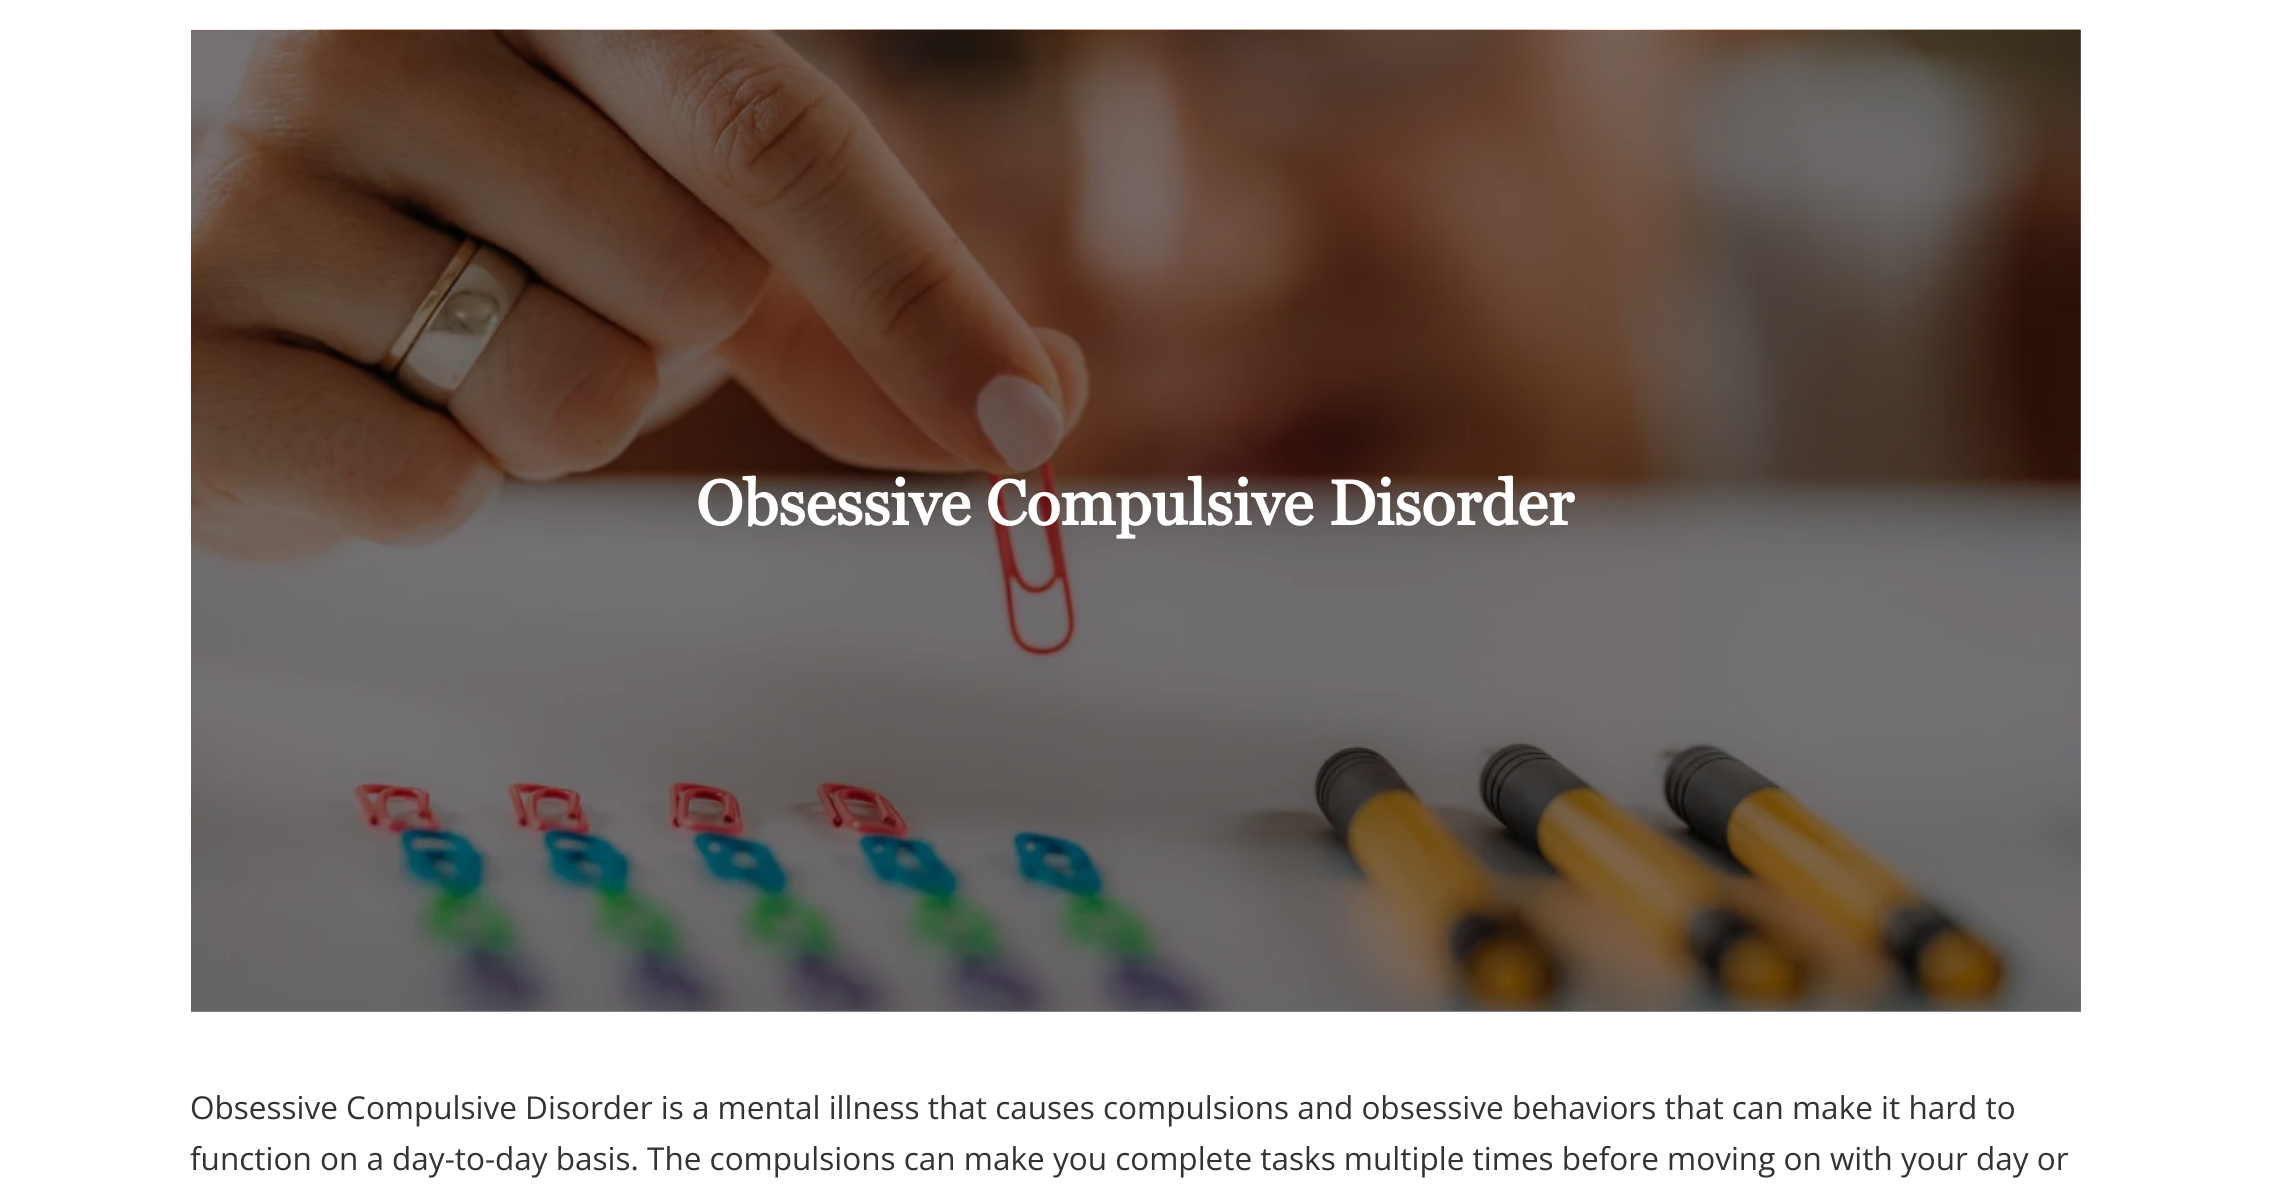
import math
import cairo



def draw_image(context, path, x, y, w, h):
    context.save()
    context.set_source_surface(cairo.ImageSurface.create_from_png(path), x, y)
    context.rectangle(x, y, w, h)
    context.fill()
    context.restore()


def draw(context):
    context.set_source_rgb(1, 1, 1)
    context.paint()
    context.set_source_rgb(128 / 255, 128 / 255, 128 / 255)
    context.rectangle(191, 30, 1890, 982)
    context.fill()
    draw_image(context, "images/1.png", 190, 29, 1891, 982)
    context.select_font_face("Georgia", cairo.FontSlant.NORMAL, cairo.FontWeight.BOLD)
    context.set_font_size(63)
    context.set_source_rgb(1, 1, 1)
    context.move_to(696, 525)
    context.show_text("Obsessive Compulsive Disorder")
    context.select_font_face("Open Sans")
    context.set_font_size(31.5)
    context.set_source_rgb(51 / 255, 51 / 255, 51 / 255)
    context.move_to(190, 1119)
    context.show_text("Obsessive Compulsive Disorder is a mental illness that causes compulsions and obsessive behaviors that can make it hard to")
    context.move_to(190, 1170)
    context.show_text("function on a day-to-day basis. The compulsions can make you complete tasks multiple times before moving on with your day or")


surface = cairo.ImageSurface(cairo.Format.RGB24, 2269, 1195)
context = cairo.Context(surface)
options = cairo.FontOptions()
options.set_hint_metrics(cairo.HintMetrics.OFF)
options.set_hint_style(cairo.HintStyle.NONE)
context.set_font_options(options)
context.set_miter_limit(4)
draw(context)
surface.write_to_png("out.png")
